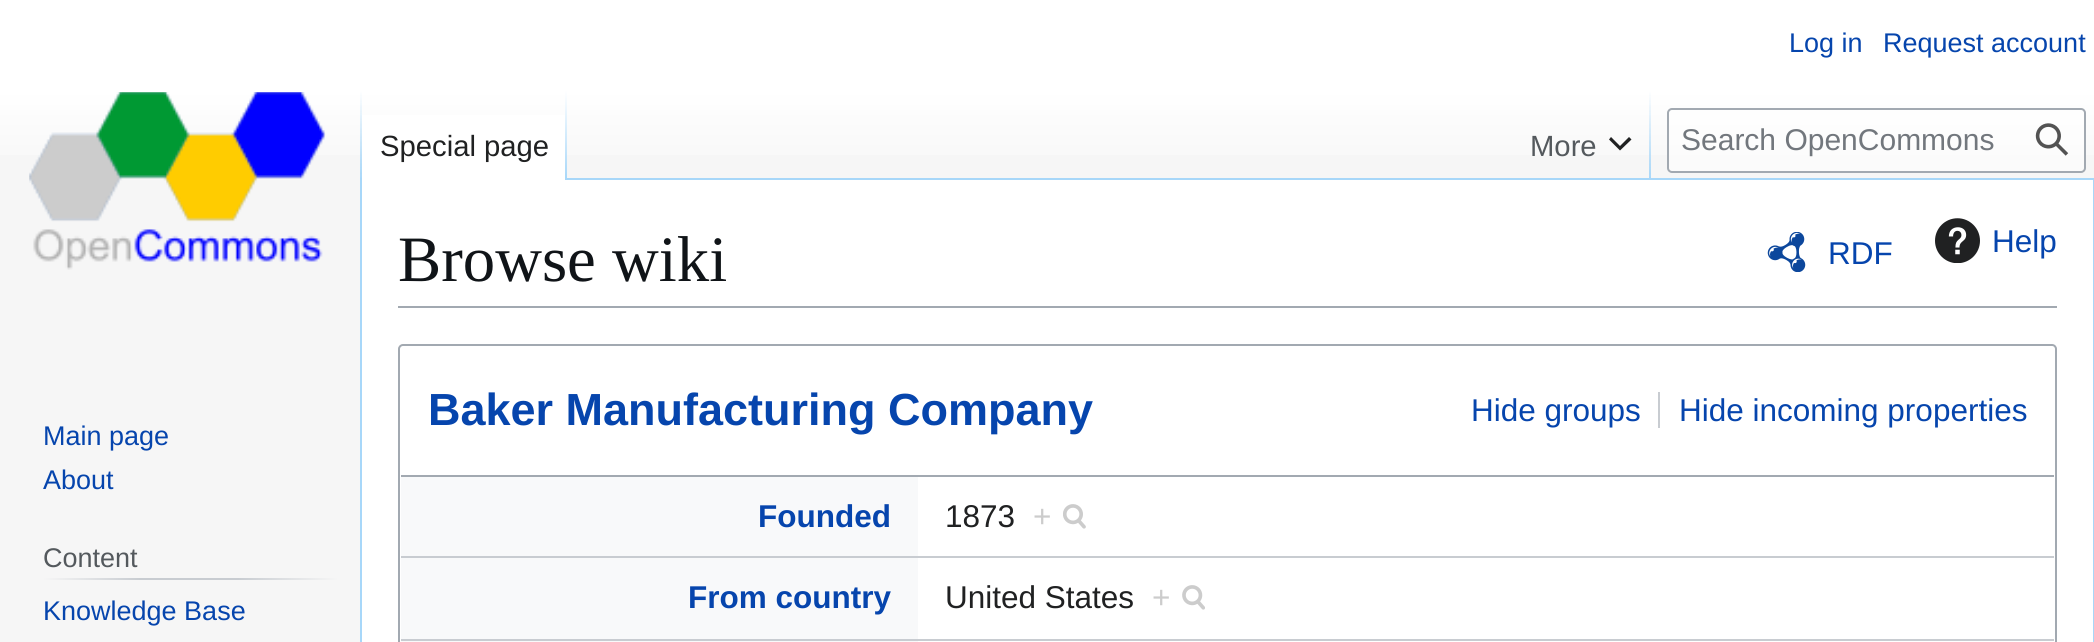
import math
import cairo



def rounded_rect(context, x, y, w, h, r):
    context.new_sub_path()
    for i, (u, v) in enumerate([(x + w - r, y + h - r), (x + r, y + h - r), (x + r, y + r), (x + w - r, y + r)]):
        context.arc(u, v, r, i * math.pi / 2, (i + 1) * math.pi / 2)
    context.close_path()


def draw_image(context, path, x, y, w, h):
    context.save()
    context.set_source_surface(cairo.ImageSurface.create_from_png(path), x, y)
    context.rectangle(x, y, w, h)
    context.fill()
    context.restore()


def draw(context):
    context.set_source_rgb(246 / 255, 246 / 255, 246 / 255)
    context.paint()
    gradient = cairo.LinearGradient(1047, 0, 1047, 180)
    gradient.add_color_stop_rgba(0.5, 1, 1, 1, 1)
    gradient.add_color_stop_rgba(1, 246 / 255, 246 / 255, 246 / 255, 1)
    context.set_source(gradient)
    context.rectangle(0, 0, 2094, 155)
    context.fill()
    context.set_source_rgb(1, 1, 1)
    context.rectangle(361, 179, 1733, 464)
    context.fill_preserve()
    context.set_source_rgb(167 / 255, 215 / 255, 249 / 255)
    context.stroke()
    gradient = cairo.LinearGradient(361, 90, 361, 180)
    gradient.add_color_stop_rgba(0, 167 / 255, 215 / 255, 249 / 255, 0)
    gradient.add_color_stop_rgba(1, 167 / 255, 215 / 255, 249 / 255, 1)
    context.set_source(gradient)
    context.rectangle(360, 90, 2, 90)
    context.fill()
    context.set_source_rgb(1, 1, 1)
    context.rectangle(362, 115, 203, 65)
    context.fill()
    gradient = cairo.LinearGradient(566, 90, 566, 180)
    gradient.add_color_stop_rgba(0, 1, 1, 1, 1)
    gradient.add_color_stop_rgba(1, 167 / 255, 215 / 255, 249 / 255, 1)
    context.set_source(gradient)
    context.rectangle(565, 90, 2, 90)
    context.fill()
    gradient = cairo.LinearGradient(1650, 90, 1650, 180)
    gradient.add_color_stop_rgba(0, 167 / 255, 215 / 255, 249 / 255, 0)
    gradient.add_color_stop_rgba(1, 167 / 255, 215 / 255, 249 / 255, 1)
    context.set_source(gradient)
    context.rectangle(1649, 90, 2, 90)
    context.fill()
    context.set_source_rgb(32 / 255, 33 / 255, 34 / 255)
    context.new_path()
    context.move_to(1631.5, 139.5)
    context.line_to(1629, 137)
    context.line_to(1620, 146)
    context.line_to(1611, 137)
    context.line_to(1609, 139.5)
    context.line_to(1620, 150.5)
    context.close_path()
    context.fill()
    context.set_source_rgba(1, 1, 1, 0.5)
    rounded_rect(context, 1668, 109, 417, 63, 4)
    context.fill_preserve()
    context.set_source_rgb(162 / 255, 169 / 255, 177 / 255)
    context.stroke()
    draw_image(context, "images/1.png", 2035, 123, 34, 33)
    draw_image(context, "images/2.png", 29, 92, 297, 178)
    gradient = cairo.LinearGradient(43, 579, 338, 579)
    gradient.add_color_stop_rgba(0, 246 / 255, 246 / 255, 246 / 255, 1)
    gradient.add_color_stop_rgba(0.33, 200 / 255, 204 / 255, 209 / 255, 1)
    gradient.add_color_stop_rgba(0.66, 200 / 255, 204 / 255, 209 / 255, 1)
    gradient.add_color_stop_rgba(1, 246 / 255, 246 / 255, 246 / 255, 1)
    context.set_source(gradient)
    context.rectangle(43, 578, 295, 2)
    context.fill()
    context.set_source_rgb(162 / 255, 169 / 255, 177 / 255)
    context.rectangle(398, 306, 1659, 2)
    context.fill()
    draw_image(context, "images/3.png", 1767, 232, 39, 40)
    draw_image(context, "images/4.png", 1935, 218, 45, 45)
    rounded_rect(context, 399, 345, 1657, 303, 4)
    context.stroke()
    context.rectangle(401, 475, 1653, 2)
    context.fill()
    context.set_source_rgb(200 / 255, 204 / 255, 209 / 255)
    context.rectangle(1658, 392, 2, 36)
    context.fill()
    context.set_source_rgb(248 / 255, 249 / 255, 250 / 255)
    context.rectangle(401, 477, 517, 79)
    context.fill()
    draw_image(context, "images/5.png", 1063, 504, 23, 25)
    context.set_source_rgb(200 / 255, 204 / 255, 209 / 255)
    context.rectangle(401, 556, 1653, 2)
    context.fill()
    context.set_source_rgb(248 / 255, 249 / 255, 250 / 255)
    context.rectangle(401, 558, 517, 81)
    context.fill()
    draw_image(context, "images/6.png", 1182, 585, 23, 25)
    context.set_source_rgb(200 / 255, 204 / 255, 209 / 255)
    context.rectangle(401, 639, 1653, 2)
    context.fill()
    context.set_source_rgb(248 / 255, 249 / 255, 250 / 255)
    context.rectangle(401, 641, 517, 1)
    context.fill()
    context.select_font_face("Liberation Sans")
    context.set_font_size(27)
    context.set_source_rgb(6 / 255, 69 / 255, 173 / 255)
    context.move_to(1789, 52)
    context.show_text("Log in")
    context.move_to(1883, 52)
    context.show_text("Request account")
    context.set_font_size(29.25)
    context.set_source_rgb(32 / 255, 33 / 255, 34 / 255)
    context.move_to(380, 156)
    context.show_text("Special page")
    context.set_source_rgb(84 / 255, 89 / 255, 93 / 255)
    context.move_to(1530, 156)
    context.show_text("More")
    context.set_font_size(30)
    context.set_source_rgb(114 / 255, 119 / 255, 125 / 255)
    context.move_to(1681, 150)
    context.show_text("Search OpenCommons")
    context.set_font_size(27)
    context.set_source_rgb(6 / 255, 69 / 255, 173 / 255)
    context.move_to(43, 445)
    context.show_text("Main page")
    context.move_to(43, 489)
    context.show_text("About")
    context.set_source_rgb(84 / 255, 89 / 255, 93 / 255)
    context.move_to(43, 567)
    context.show_text("Content")
    context.set_source_rgb(6 / 255, 69 / 255, 173 / 255)
    context.move_to(43, 620)
    context.show_text("Knowledge Base")
    context.select_font_face("Liberation Serif")
    context.set_font_size(64.75)
    context.set_source_rgb(16 / 255, 20 / 255, 24 / 255)
    context.move_to(398, 281)
    context.show_text("Browse wiki")
    context.select_font_face("Liberation Sans")
    context.set_font_size(31.5)
    context.set_source_rgb(6 / 255, 69 / 255, 173 / 255)
    context.move_to(1828, 264)
    context.show_text("RDF")
    context.move_to(1992, 252)
    context.show_text("Help")
    context.select_font_face("Liberation Sans", cairo.FontSlant.NORMAL, cairo.FontWeight.BOLD)
    context.set_font_size(45)
    context.move_to(428, 425)
    context.show_text("Baker Manufacturing Company")
    context.select_font_face("Liberation Sans")
    context.set_font_size(31.5)
    context.move_to(1471, 421)
    context.show_text("Hide groups")
    context.move_to(1679, 421)
    context.show_text("Hide incoming properties")
    context.select_font_face("Liberation Sans", cairo.FontSlant.NORMAL, cairo.FontWeight.BOLD)
    context.move_to(758, 527)
    context.show_text("Founded")
    context.select_font_face("Liberation Sans")
    context.set_source_rgb(32 / 255, 33 / 255, 34 / 255)
    context.move_to(945, 527)
    context.show_text("1873")
    context.set_source_rgb(204 / 255, 204 / 255, 204 / 255)
    context.move_to(1033, 527)
    context.show_text("+")
    context.select_font_face("Liberation Sans", cairo.FontSlant.NORMAL, cairo.FontWeight.BOLD)
    context.set_source_rgb(6 / 255, 69 / 255, 173 / 255)
    context.move_to(688, 608)
    context.show_text("From country")
    context.select_font_face("Liberation Sans")
    context.set_source_rgb(32 / 255, 33 / 255, 34 / 255)
    context.move_to(945, 608)
    context.show_text("United States")
    context.set_source_rgb(204 / 255, 204 / 255, 204 / 255)
    context.move_to(1152, 608)
    context.show_text("+")


surface = cairo.ImageSurface(cairo.Format.RGB24, 2094, 642)
context = cairo.Context(surface)
options = cairo.FontOptions()
options.set_hint_metrics(cairo.HintMetrics.OFF)
options.set_hint_style(cairo.HintStyle.NONE)
context.set_font_options(options)
context.set_miter_limit(4)
draw(context)
surface.write_to_png("out.png")
